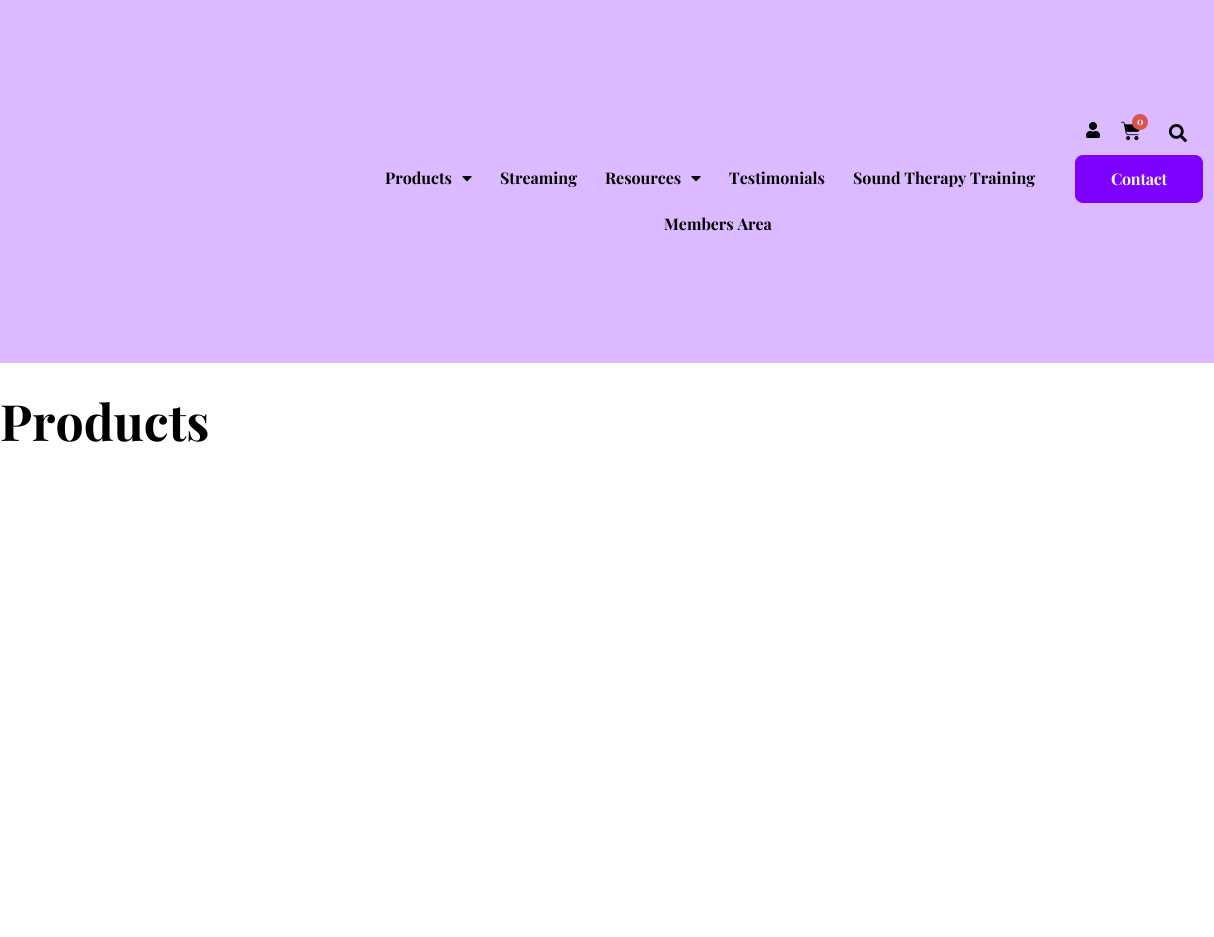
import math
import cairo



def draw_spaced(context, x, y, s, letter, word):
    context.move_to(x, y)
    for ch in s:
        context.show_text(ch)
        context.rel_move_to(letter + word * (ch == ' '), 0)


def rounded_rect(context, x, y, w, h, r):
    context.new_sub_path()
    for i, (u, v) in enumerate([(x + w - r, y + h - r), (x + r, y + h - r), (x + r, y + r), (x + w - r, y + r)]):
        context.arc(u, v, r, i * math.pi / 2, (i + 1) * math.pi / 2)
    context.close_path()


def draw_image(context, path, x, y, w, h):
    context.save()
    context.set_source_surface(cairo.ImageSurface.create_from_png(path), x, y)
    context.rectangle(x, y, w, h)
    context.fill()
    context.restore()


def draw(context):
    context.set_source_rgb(1, 1, 1)
    context.paint()
    context.set_source_rgb(220 / 255, 186 / 255, 1)
    context.rectangle(0, 0, 1214, 363)
    context.fill()
    draw_image(context, "images/1.png", 1086, 122, 14, 16)
    draw_image(context, "images/2.png", 1121, 121, 19, 20)
    context.set_source_rgb(217 / 255, 83 / 255, 79 / 255)
    context.arc(1140, 122, 8, 0, 2 * math.pi)
    context.fill()
    draw_image(context, "images/3.png", 1168, 124, 19, 19)
    draw_image(context, "images/4.png", 462, 176, 10, 6)
    draw_image(context, "images/4.png", 691, 176, 10, 6)
    context.set_source_rgb(126 / 255, 0, 1)
    rounded_rect(context, 1075.5, 155.5, 127, 47, 7.5)
    context.fill_preserve()
    context.set_line_width(1)
    context.stroke()
    context.select_font_face("Playfair Display", cairo.FontSlant.NORMAL, cairo.FontWeight.BOLD)
    context.set_font_size(10)
    context.set_source_rgb(1, 1, 1)
    context.move_to(1137, 125)
    context.show_text("0")
    context.set_font_size(16)
    context.set_source_rgb(0, 0, 0)
    context.move_to(385, 184)
    context.show_text("Products")
    context.move_to(500, 184)
    context.show_text("Streaming")
    context.move_to(605, 184)
    context.show_text("Resources")
    context.move_to(729, 184)
    context.show_text("Testimonials")
    context.move_to(853, 184)
    context.show_text("Sound Therapy Training")
    context.move_to(664, 230)
    context.show_text("Members Area")
    context.set_source_rgb(1, 1, 1)
    draw_spaced(context, 1111, 185, "Contact", -0.25, 0)
    context.set_font_size(50)
    context.set_source_rgb(0, 0, 0)
    context.move_to(0, 441)
    context.show_text("Products")


surface = cairo.ImageSurface(cairo.Format.RGB24, 1214, 937)
context = cairo.Context(surface)
options = cairo.FontOptions()
options.set_hint_metrics(cairo.HintMetrics.OFF)
options.set_hint_style(cairo.HintStyle.NONE)
context.set_font_options(options)
context.set_miter_limit(4)
draw(context)
surface.write_to_png("out.png")
